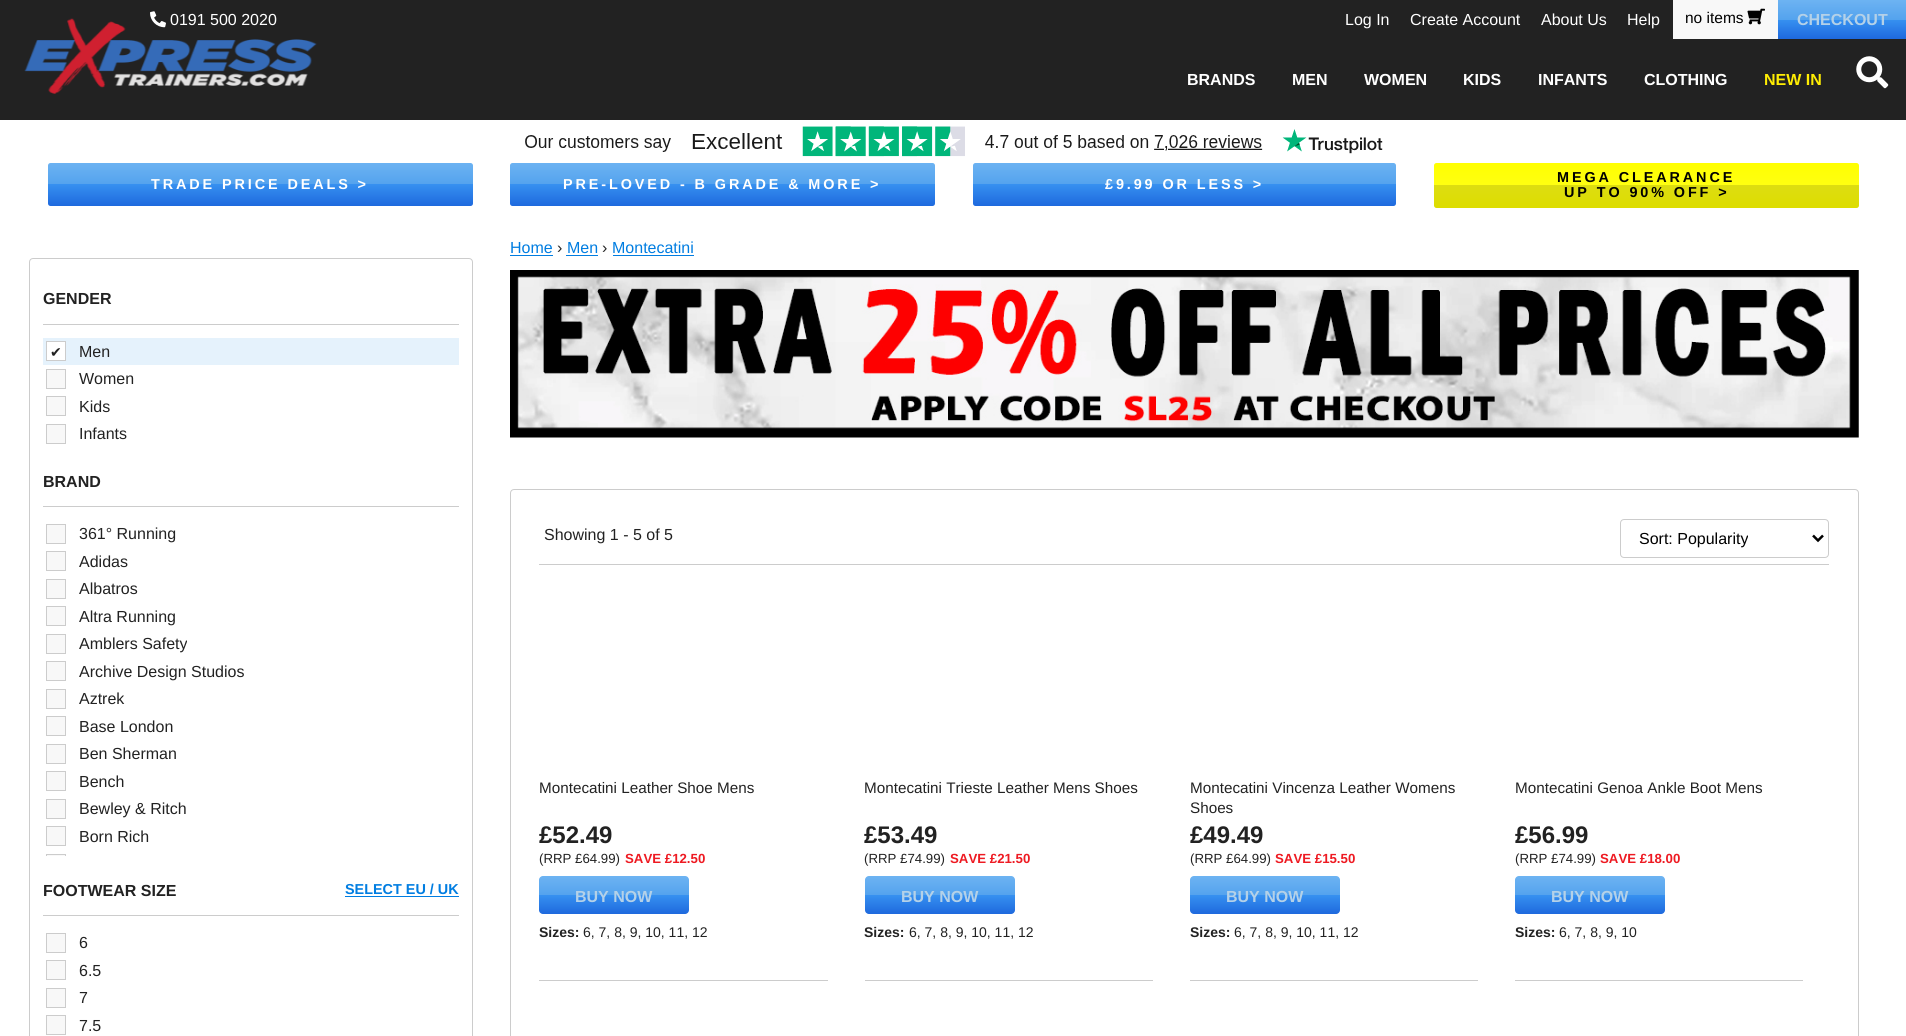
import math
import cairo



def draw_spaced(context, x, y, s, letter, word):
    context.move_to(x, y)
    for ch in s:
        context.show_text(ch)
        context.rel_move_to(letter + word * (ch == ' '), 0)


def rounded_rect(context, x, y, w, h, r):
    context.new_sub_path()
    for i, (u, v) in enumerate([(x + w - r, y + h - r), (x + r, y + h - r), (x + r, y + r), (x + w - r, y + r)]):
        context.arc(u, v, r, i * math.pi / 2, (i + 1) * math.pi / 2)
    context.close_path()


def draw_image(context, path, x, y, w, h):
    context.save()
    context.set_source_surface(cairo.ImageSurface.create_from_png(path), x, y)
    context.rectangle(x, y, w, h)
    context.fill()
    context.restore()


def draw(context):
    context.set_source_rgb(1, 1, 1)
    context.paint()
    context.set_source_rgb(34 / 255, 34 / 255, 34 / 255)
    context.rectangle(0, 0, 1673, 39)
    context.fill()
    draw_image(context, "images/1.png", 150, 11, 16, 17)
    context.set_source_rgb(248 / 255, 248 / 255, 248 / 255)
    context.rectangle(1673, 0, 105, 39)
    context.fill()
    draw_image(context, "images/2.png", 1747, 8, 18, 17)
    gradient = cairo.LinearGradient(1842, 0, 1842, 39)
    gradient.add_color_stop_rgba(0, 109 / 255, 179 / 255, 242 / 255, 1)
    gradient.add_color_stop_rgba(0.5, 84 / 255, 163 / 255, 238 / 255, 1)
    gradient.add_color_stop_rgba(0.51, 54 / 255, 144 / 255, 240 / 255, 1)
    gradient.add_color_stop_rgba(1, 30 / 255, 105 / 255, 222 / 255, 1)
    context.set_source(gradient)
    context.rectangle(1778, 0, 128, 39)
    context.fill()
    context.set_source_rgb(34 / 255, 34 / 255, 34 / 255)
    context.rectangle(0, 39, 1906, 81)
    context.fill()
    draw_image(context, "images/4.png", 1856, 56, 33, 33)
    draw_image(context, "images/5.png", 525, 126, 858, 31)
    gradient = cairo.LinearGradient(260, 162, 260, 206)
    gradient.add_color_stop_rgba(0, 109 / 255, 179 / 255, 242 / 255, 1)
    gradient.add_color_stop_rgba(0.5, 84 / 255, 163 / 255, 238 / 255, 1)
    gradient.add_color_stop_rgba(0.51, 54 / 255, 144 / 255, 240 / 255, 1)
    gradient.add_color_stop_rgba(1, 30 / 255, 105 / 255, 222 / 255, 1)
    context.set_source(gradient)
    rounded_rect(context, 48, 163, 425, 43, 2.5)
    context.fill()
    gradient = cairo.LinearGradient(723, 162, 723, 206)
    gradient.add_color_stop_rgba(0, 109 / 255, 179 / 255, 242 / 255, 1)
    gradient.add_color_stop_rgba(0.5, 84 / 255, 163 / 255, 238 / 255, 1)
    gradient.add_color_stop_rgba(0.51, 54 / 255, 144 / 255, 240 / 255, 1)
    gradient.add_color_stop_rgba(1, 30 / 255, 105 / 255, 222 / 255, 1)
    context.set_source(gradient)
    rounded_rect(context, 510, 163, 425, 43, 2.5)
    context.fill()
    gradient = cairo.LinearGradient(1184, 162, 1184, 206)
    gradient.add_color_stop_rgba(0, 109 / 255, 179 / 255, 242 / 255, 1)
    gradient.add_color_stop_rgba(0.5, 84 / 255, 163 / 255, 238 / 255, 1)
    gradient.add_color_stop_rgba(0.51, 54 / 255, 144 / 255, 240 / 255, 1)
    gradient.add_color_stop_rgba(1, 30 / 255, 105 / 255, 222 / 255, 1)
    context.set_source(gradient)
    rounded_rect(context, 973, 163, 423, 43, 2.5)
    context.fill()
    gradient = cairo.LinearGradient(1646, 162, 1646, 208)
    gradient.add_color_stop_rgba(0, 1, 1, 0, 1)
    gradient.add_color_stop_rgba(0.5, 1, 1, 17 / 255, 1)
    gradient.add_color_stop_rgba(0.51, 221 / 255, 221 / 255, 17 / 255, 1)
    gradient.add_color_stop_rgba(1, 221 / 255, 221 / 255, 0, 1)
    context.set_source(gradient)
    rounded_rect(context, 1434, 163, 425, 45, 2.5)
    context.fill()
    rounded_rect(context, 29.5, 258.5, 443, 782, 3.5)
    context.set_source_rgb(204 / 255, 204 / 255, 204 / 255)
    context.set_line_width(1)
    context.stroke()
    context.rectangle(43, 324, 416, 1)
    context.fill()
    context.set_source_rgb(229 / 255, 242 / 255, 252 / 255)
    context.rectangle(43, 338, 416, 27)
    context.fill()
    context.set_source_rgb(1, 1, 1)
    context.rectangle(46.5, 341.5, 19, 19)
    context.fill_preserve()
    context.set_source_rgb(204 / 255, 204 / 255, 204 / 255)
    context.stroke()
    context.set_source_rgb(248 / 255, 248 / 255, 248 / 255)
    context.rectangle(46.5, 369.5, 19, 19)
    context.fill_preserve()
    context.set_source_rgb(204 / 255, 204 / 255, 204 / 255)
    context.stroke()
    context.set_source_rgb(248 / 255, 248 / 255, 248 / 255)
    context.rectangle(46.5, 396.5, 19, 19)
    context.fill_preserve()
    context.set_source_rgb(204 / 255, 204 / 255, 204 / 255)
    context.stroke()
    context.set_source_rgb(248 / 255, 248 / 255, 248 / 255)
    context.rectangle(46.5, 424.5, 19, 19)
    context.fill_preserve()
    context.set_source_rgb(204 / 255, 204 / 255, 204 / 255)
    context.stroke()
    context.rectangle(43, 506, 416, 1)
    context.fill()
    context.set_source_rgb(248 / 255, 248 / 255, 248 / 255)
    context.rectangle(46.5, 524.5, 19, 19)
    context.fill_preserve()
    context.set_source_rgb(204 / 255, 204 / 255, 204 / 255)
    context.stroke()
    context.set_source_rgb(248 / 255, 248 / 255, 248 / 255)
    context.rectangle(46.5, 551.5, 19, 19)
    context.fill_preserve()
    context.set_source_rgb(204 / 255, 204 / 255, 204 / 255)
    context.stroke()
    context.set_source_rgb(248 / 255, 248 / 255, 248 / 255)
    context.rectangle(46.5, 579.5, 19, 19)
    context.fill_preserve()
    context.set_source_rgb(204 / 255, 204 / 255, 204 / 255)
    context.stroke()
    context.set_source_rgb(248 / 255, 248 / 255, 248 / 255)
    context.rectangle(46.5, 606.5, 19, 19)
    context.fill_preserve()
    context.set_source_rgb(204 / 255, 204 / 255, 204 / 255)
    context.stroke()
    context.set_source_rgb(248 / 255, 248 / 255, 248 / 255)
    context.rectangle(46.5, 634.5, 19, 19)
    context.fill_preserve()
    context.set_source_rgb(204 / 255, 204 / 255, 204 / 255)
    context.stroke()
    context.set_source_rgb(248 / 255, 248 / 255, 248 / 255)
    context.rectangle(46.5, 661.5, 19, 19)
    context.fill_preserve()
    context.set_source_rgb(204 / 255, 204 / 255, 204 / 255)
    context.stroke()
    context.set_source_rgb(248 / 255, 248 / 255, 248 / 255)
    context.rectangle(46.5, 689.5, 19, 19)
    context.fill_preserve()
    context.set_source_rgb(204 / 255, 204 / 255, 204 / 255)
    context.stroke()
    context.set_source_rgb(248 / 255, 248 / 255, 248 / 255)
    context.rectangle(46.5, 716.5, 19, 19)
    context.fill_preserve()
    context.set_source_rgb(204 / 255, 204 / 255, 204 / 255)
    context.stroke()
    context.set_source_rgb(248 / 255, 248 / 255, 248 / 255)
    context.rectangle(46.5, 744.5, 19, 19)
    context.fill_preserve()
    context.set_source_rgb(204 / 255, 204 / 255, 204 / 255)
    context.stroke()
    context.set_source_rgb(248 / 255, 248 / 255, 248 / 255)
    context.rectangle(46.5, 771.5, 19, 19)
    context.fill_preserve()
    context.set_source_rgb(204 / 255, 204 / 255, 204 / 255)
    context.stroke()
    context.set_source_rgb(248 / 255, 248 / 255, 248 / 255)
    context.rectangle(46.5, 799.5, 19, 19)
    context.fill_preserve()
    context.set_source_rgb(204 / 255, 204 / 255, 204 / 255)
    context.stroke()
    context.set_source_rgb(248 / 255, 248 / 255, 248 / 255)
    context.rectangle(46.5, 826.5, 19, 19)
    context.fill_preserve()
    context.set_source_rgb(204 / 255, 204 / 255, 204 / 255)
    context.stroke()
    context.set_source_rgb(248 / 255, 248 / 255, 248 / 255)
    context.rectangle(46, 855, 20, 1)
    context.fill()
    context.save()
    context.rectangle(43, 520, 416, 336)
    context.clip()
    context.rectangle(46.5, 854.5, 19, 19)
    context.set_source_rgb(204 / 255, 204 / 255, 204 / 255)
    context.stroke()
    context.restore()
    context.set_source_rgb(0, 125 / 255, 225 / 255)
    context.rectangle(345, 896, 114, 1)
    context.fill()
    context.set_source_rgb(204 / 255, 204 / 255, 204 / 255)
    context.rectangle(43, 915, 416, 1)
    context.fill()
    context.set_source_rgb(248 / 255, 248 / 255, 248 / 255)
    context.rectangle(46.5, 933.5, 19, 19)
    context.fill_preserve()
    context.set_source_rgb(204 / 255, 204 / 255, 204 / 255)
    context.stroke()
    context.set_source_rgb(248 / 255, 248 / 255, 248 / 255)
    context.rectangle(46.5, 960.5, 19, 19)
    context.fill_preserve()
    context.set_source_rgb(204 / 255, 204 / 255, 204 / 255)
    context.stroke()
    context.set_source_rgb(248 / 255, 248 / 255, 248 / 255)
    context.rectangle(46.5, 988.5, 19, 19)
    context.fill_preserve()
    context.set_source_rgb(204 / 255, 204 / 255, 204 / 255)
    context.stroke()
    context.set_source_rgb(248 / 255, 248 / 255, 248 / 255)
    context.rectangle(46.5, 1015.5, 19, 19)
    context.fill_preserve()
    context.set_source_rgb(204 / 255, 204 / 255, 204 / 255)
    context.stroke()
    context.set_source_rgb(0, 125 / 255, 225 / 255)
    context.rectangle(510, 255, 43, 1)
    context.fill()
    context.rectangle(566, 255, 32, 1)
    context.fill()
    context.rectangle(613, 255, 81, 1)
    context.fill()
    draw_image(context, "images/6.png", 510, 270, 1349, 168)
    rounded_rect(context, 510.5, 489.5, 1348, 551, 3.5)
    context.set_source_rgb(204 / 255, 204 / 255, 204 / 255)
    context.stroke()
    context.rectangle(539, 564, 1290, 1)
    context.fill()
    rounded_rect(context, 1620.5, 519.5, 208, 38, 3.5)
    context.stroke()
    context.new_path()
    context.move_to(1813, 535.5)
    context.line_to(1818, 540.5)
    context.line_to(1823, 535.5)
    context.set_source_rgb(0, 0, 0)
    context.set_line_width(2.5)
    context.stroke()
    context.set_source_rgb(204 / 255, 204 / 255, 204 / 255)
    context.rectangle(539, 980, 289, 1)
    context.fill()
    gradient = cairo.LinearGradient(614, 876, 614, 914)
    gradient.add_color_stop_rgba(0, 109 / 255, 179 / 255, 242 / 255, 1)
    gradient.add_color_stop_rgba(0.5, 84 / 255, 163 / 255, 238 / 255, 1)
    gradient.add_color_stop_rgba(0.51, 54 / 255, 144 / 255, 240 / 255, 1)
    gradient.add_color_stop_rgba(1, 30 / 255, 105 / 255, 222 / 255, 1)
    context.set_source(gradient)
    rounded_rect(context, 539, 876, 150, 38, 4)
    context.fill()
    context.set_source_rgb(204 / 255, 204 / 255, 204 / 255)
    context.rectangle(865, 980, 288, 1)
    context.fill()
    gradient = cairo.LinearGradient(940, 876, 940, 914)
    gradient.add_color_stop_rgba(0, 109 / 255, 179 / 255, 242 / 255, 1)
    gradient.add_color_stop_rgba(0.5, 84 / 255, 163 / 255, 238 / 255, 1)
    gradient.add_color_stop_rgba(0.51, 54 / 255, 144 / 255, 240 / 255, 1)
    gradient.add_color_stop_rgba(1, 30 / 255, 105 / 255, 222 / 255, 1)
    context.set_source(gradient)
    rounded_rect(context, 865, 876, 150, 38, 4)
    context.fill()
    context.set_source_rgb(204 / 255, 204 / 255, 204 / 255)
    context.rectangle(1190, 980, 288, 1)
    context.fill()
    gradient = cairo.LinearGradient(1265, 876, 1265, 914)
    gradient.add_color_stop_rgba(0, 109 / 255, 179 / 255, 242 / 255, 1)
    gradient.add_color_stop_rgba(0.5, 84 / 255, 163 / 255, 238 / 255, 1)
    gradient.add_color_stop_rgba(0.51, 54 / 255, 144 / 255, 240 / 255, 1)
    gradient.add_color_stop_rgba(1, 30 / 255, 105 / 255, 222 / 255, 1)
    context.set_source(gradient)
    rounded_rect(context, 1190, 876, 150, 38, 4)
    context.fill()
    context.set_source_rgb(204 / 255, 204 / 255, 204 / 255)
    context.rectangle(1515, 980, 288, 1)
    context.fill()
    gradient = cairo.LinearGradient(1590, 876, 1590, 914)
    gradient.add_color_stop_rgba(0, 109 / 255, 179 / 255, 242 / 255, 1)
    gradient.add_color_stop_rgba(0.5, 84 / 255, 163 / 255, 238 / 255, 1)
    gradient.add_color_stop_rgba(0.51, 54 / 255, 144 / 255, 240 / 255, 1)
    gradient.add_color_stop_rgba(1, 30 / 255, 105 / 255, 222 / 255, 1)
    context.set_source(gradient)
    rounded_rect(context, 1515, 876, 150, 38, 4)
    context.fill()
    context.select_font_face("Liberation Sans")
    context.set_font_size(16)
    context.set_source_rgb(1, 1, 1)
    context.move_to(170, 25)
    context.show_text("0191 500 2020")
    context.move_to(1345, 25)
    context.show_text("Log In")
    context.move_to(1410, 25)
    context.show_text("Create Account")
    context.move_to(1541, 25)
    context.show_text("About Us")
    context.move_to(1627, 25)
    context.show_text("Help")
    context.set_font_size(15.5)
    context.set_source_rgb(0, 0, 0)
    context.move_to(1685, 23)
    context.show_text("no items")
    context.select_font_face("Liberation Sans", cairo.FontSlant.NORMAL, cairo.FontWeight.BOLD)
    context.set_font_size(16)
    context.set_source_rgb(180 / 255, 209 / 255, 232 / 255)
    context.move_to(1797, 25)
    context.show_text("CHECKOUT")
    draw_image(context, "images/3.png", 24, 18, 293, 76)
    context.set_source_rgb(1, 1, 1)
    context.move_to(1187, 85)
    context.show_text("BRANDS")
    context.move_to(1292, 85)
    context.show_text("MEN")
    context.move_to(1364, 85)
    context.show_text("WOMEN")
    context.move_to(1463, 85)
    context.show_text("KIDS")
    context.move_to(1538, 85)
    context.show_text("INFANTS")
    context.move_to(1644, 85)
    context.show_text("CLOTHING")
    context.set_source_rgb(1, 237 / 255, 3 / 255)
    context.move_to(1764, 85)
    context.show_text("NEW IN")
    context.set_font_size(14.4)
    context.set_source_rgb(1, 1, 1)
    draw_spaced(context, 151, 189, "TRADE PRICE DEALS >", 2.9, 0)
    draw_spaced(context, 563, 189, "PRE-LOVED - B GRADE & MORE >", 2.9, 0)
    draw_spaced(context, 1105, 189, "£9.99 OR LESS >", 2.9, 0)
    context.set_source_rgb(0, 0, 0)
    draw_spaced(context, 1557, 182, "MEGA CLEARANCE", 2.9, 0)
    draw_spaced(context, 1564, 197, "UP TO 90% OFF >", 2.9, 0)
    context.set_font_size(16)
    context.set_source_rgb(34 / 255, 34 / 255, 34 / 255)
    context.move_to(43, 304)
    context.show_text("GENDER")
    context.select_font_face("DejaVu Sans")
    context.set_font_size(14)
    context.move_to(50, 357)
    context.show_text("✔")
    context.select_font_face("Liberation Sans")
    context.set_font_size(16)
    context.move_to(79, 357)
    context.show_text("Men")
    context.move_to(79, 384)
    context.show_text("Women")
    context.move_to(79, 412)
    context.show_text("Kids")
    context.move_to(79, 439)
    context.show_text("Infants")
    context.select_font_face("Liberation Sans", cairo.FontSlant.NORMAL, cairo.FontWeight.BOLD)
    context.move_to(43, 487)
    context.show_text("BRAND")
    context.select_font_face("Liberation Sans")
    context.move_to(79, 539)
    context.show_text("361° Running")
    context.move_to(79, 567)
    context.show_text("Adidas")
    context.move_to(79, 594)
    context.show_text("Albatros")
    context.move_to(79, 622)
    context.show_text("Altra Running")
    context.move_to(79, 649)
    context.show_text("Amblers Safety")
    context.move_to(79, 677)
    context.show_text("Archive Design Studios")
    context.move_to(79, 704)
    context.show_text("Aztrek")
    context.move_to(79, 732)
    context.show_text("Base London")
    context.move_to(79, 759)
    context.show_text("Ben Sherman")
    context.move_to(79, 787)
    context.show_text("Bench")
    context.move_to(79, 814)
    context.show_text("Bewley & Ritch")
    context.move_to(79, 842)
    context.show_text("Born Rich")
    context.select_font_face("Liberation Sans", cairo.FontSlant.NORMAL, cairo.FontWeight.BOLD)
    context.move_to(43, 896)
    context.show_text("FOOTWEAR SIZE")
    context.set_font_size(14.4)
    context.set_source_rgb(0, 125 / 255, 225 / 255)
    context.move_to(345, 894)
    context.show_text("SELECT EU / UK")
    context.select_font_face("Liberation Sans")
    context.set_font_size(16)
    context.set_source_rgb(34 / 255, 34 / 255, 34 / 255)
    context.move_to(79, 948)
    context.show_text("6")
    context.move_to(79, 976)
    context.show_text("6.5")
    context.move_to(79, 1003)
    context.show_text("7")
    context.move_to(79, 1031)
    context.show_text("7.5")
    context.set_source_rgb(0, 125 / 255, 225 / 255)
    context.move_to(510, 253)
    context.show_text("Home")
    context.set_source_rgb(34 / 255, 34 / 255, 34 / 255)
    context.move_to(557, 253)
    context.show_text("›")
    context.set_source_rgb(0, 125 / 255, 225 / 255)
    context.move_to(567, 253)
    context.show_text("Men")
    context.set_source_rgb(34 / 255, 34 / 255, 34 / 255)
    context.move_to(602, 253)
    context.show_text("›")
    context.set_source_rgb(0, 125 / 255, 225 / 255)
    context.move_to(612, 253)
    context.show_text("Montecatini")
    context.set_source_rgb(34 / 255, 34 / 255, 34 / 255)
    context.move_to(544, 540)
    context.show_text("Showing 1 - 5 of 5")
    context.set_source_rgb(0, 0, 0)
    context.move_to(1639, 544)
    context.show_text("Sort: Popularity")
    context.set_font_size(15.25)
    context.set_source_rgb(34 / 255, 34 / 255, 34 / 255)
    context.move_to(539, 793)
    context.show_text("Montecatini Leather Shoe Mens")
    context.select_font_face("Liberation Sans", cairo.FontSlant.NORMAL, cairo.FontWeight.BOLD)
    context.set_font_size(24)
    context.move_to(539, 843)
    context.show_text("£52.49")
    context.select_font_face("Liberation Sans")
    context.set_font_size(13.25)
    context.move_to(539, 863)
    context.show_text("(RRP £64.99)")
    context.select_font_face("Liberation Sans", cairo.FontSlant.NORMAL, cairo.FontWeight.BOLD)
    context.set_source_rgb(238 / 255, 26 / 255, 34 / 255)
    context.move_to(625, 863)
    context.show_text("SAVE £12.50")
    context.set_font_size(16)
    context.set_source_rgb(180 / 255, 209 / 255, 232 / 255)
    context.move_to(575, 902)
    context.show_text("BUY NOW")
    context.set_font_size(14)
    context.set_source_rgb(34 / 255, 34 / 255, 34 / 255)
    context.move_to(539, 937)
    context.show_text("Sizes:")
    context.select_font_face("Liberation Sans")
    context.move_to(583, 937)
    context.show_text("6, 7, 8, 9, 10, 11, 12")
    context.set_font_size(15.25)
    context.move_to(864, 793)
    context.show_text("Montecatini Trieste Leather Mens Shoes")
    context.select_font_face("Liberation Sans", cairo.FontSlant.NORMAL, cairo.FontWeight.BOLD)
    context.set_font_size(24)
    context.move_to(864, 843)
    context.show_text("£53.49")
    context.select_font_face("Liberation Sans")
    context.set_font_size(13.25)
    context.move_to(864, 863)
    context.show_text("(RRP £74.99)")
    context.select_font_face("Liberation Sans", cairo.FontSlant.NORMAL, cairo.FontWeight.BOLD)
    context.set_source_rgb(238 / 255, 26 / 255, 34 / 255)
    context.move_to(950, 863)
    context.show_text("SAVE £21.50")
    context.set_font_size(16)
    context.set_source_rgb(180 / 255, 209 / 255, 232 / 255)
    context.move_to(901, 902)
    context.show_text("BUY NOW")
    context.set_font_size(14)
    context.set_source_rgb(34 / 255, 34 / 255, 34 / 255)
    context.move_to(864, 937)
    context.show_text("Sizes:")
    context.select_font_face("Liberation Sans")
    context.move_to(909, 937)
    context.show_text("6, 7, 8, 9, 10, 11, 12")
    context.set_font_size(15.25)
    context.move_to(1190, 793)
    context.show_text("Montecatini Vincenza Leather Womens")
    context.move_to(1190, 813)
    context.show_text("Shoes")
    context.select_font_face("Liberation Sans", cairo.FontSlant.NORMAL, cairo.FontWeight.BOLD)
    context.set_font_size(24)
    context.move_to(1190, 843)
    context.show_text("£49.49")
    context.select_font_face("Liberation Sans")
    context.set_font_size(13.25)
    context.move_to(1190, 863)
    context.show_text("(RRP £64.99)")
    context.select_font_face("Liberation Sans", cairo.FontSlant.NORMAL, cairo.FontWeight.BOLD)
    context.set_source_rgb(238 / 255, 26 / 255, 34 / 255)
    context.move_to(1275, 863)
    context.show_text("SAVE £15.50")
    context.set_font_size(16)
    context.set_source_rgb(180 / 255, 209 / 255, 232 / 255)
    context.move_to(1226, 902)
    context.show_text("BUY NOW")
    context.set_font_size(14)
    context.set_source_rgb(34 / 255, 34 / 255, 34 / 255)
    context.move_to(1190, 937)
    context.show_text("Sizes:")
    context.select_font_face("Liberation Sans")
    context.move_to(1234, 937)
    context.show_text("6, 7, 8, 9, 10, 11, 12")
    context.set_font_size(15.25)
    context.move_to(1515, 793)
    context.show_text("Montecatini Genoa Ankle Boot Mens")
    context.select_font_face("Liberation Sans", cairo.FontSlant.NORMAL, cairo.FontWeight.BOLD)
    context.set_font_size(24)
    context.move_to(1515, 843)
    context.show_text("£56.99")
    context.select_font_face("Liberation Sans")
    context.set_font_size(13.25)
    context.move_to(1515, 863)
    context.show_text("(RRP £74.99)")
    context.select_font_face("Liberation Sans", cairo.FontSlant.NORMAL, cairo.FontWeight.BOLD)
    context.set_source_rgb(238 / 255, 26 / 255, 34 / 255)
    context.move_to(1600, 863)
    context.show_text("SAVE £18.00")
    context.set_font_size(16)
    context.set_source_rgb(180 / 255, 209 / 255, 232 / 255)
    context.move_to(1551, 902)
    context.show_text("BUY NOW")
    context.set_font_size(14)
    context.set_source_rgb(34 / 255, 34 / 255, 34 / 255)
    context.move_to(1515, 937)
    context.show_text("Sizes:")
    context.select_font_face("Liberation Sans")
    context.move_to(1559, 937)
    context.show_text("6, 7, 8, 9, 10")


surface = cairo.ImageSurface(cairo.Format.RGB24, 1906, 1036)
context = cairo.Context(surface)
options = cairo.FontOptions()
options.set_hint_metrics(cairo.HintMetrics.OFF)
options.set_hint_style(cairo.HintStyle.NONE)
context.set_font_options(options)
context.set_miter_limit(4)
draw(context)
surface.write_to_png("out.png")
